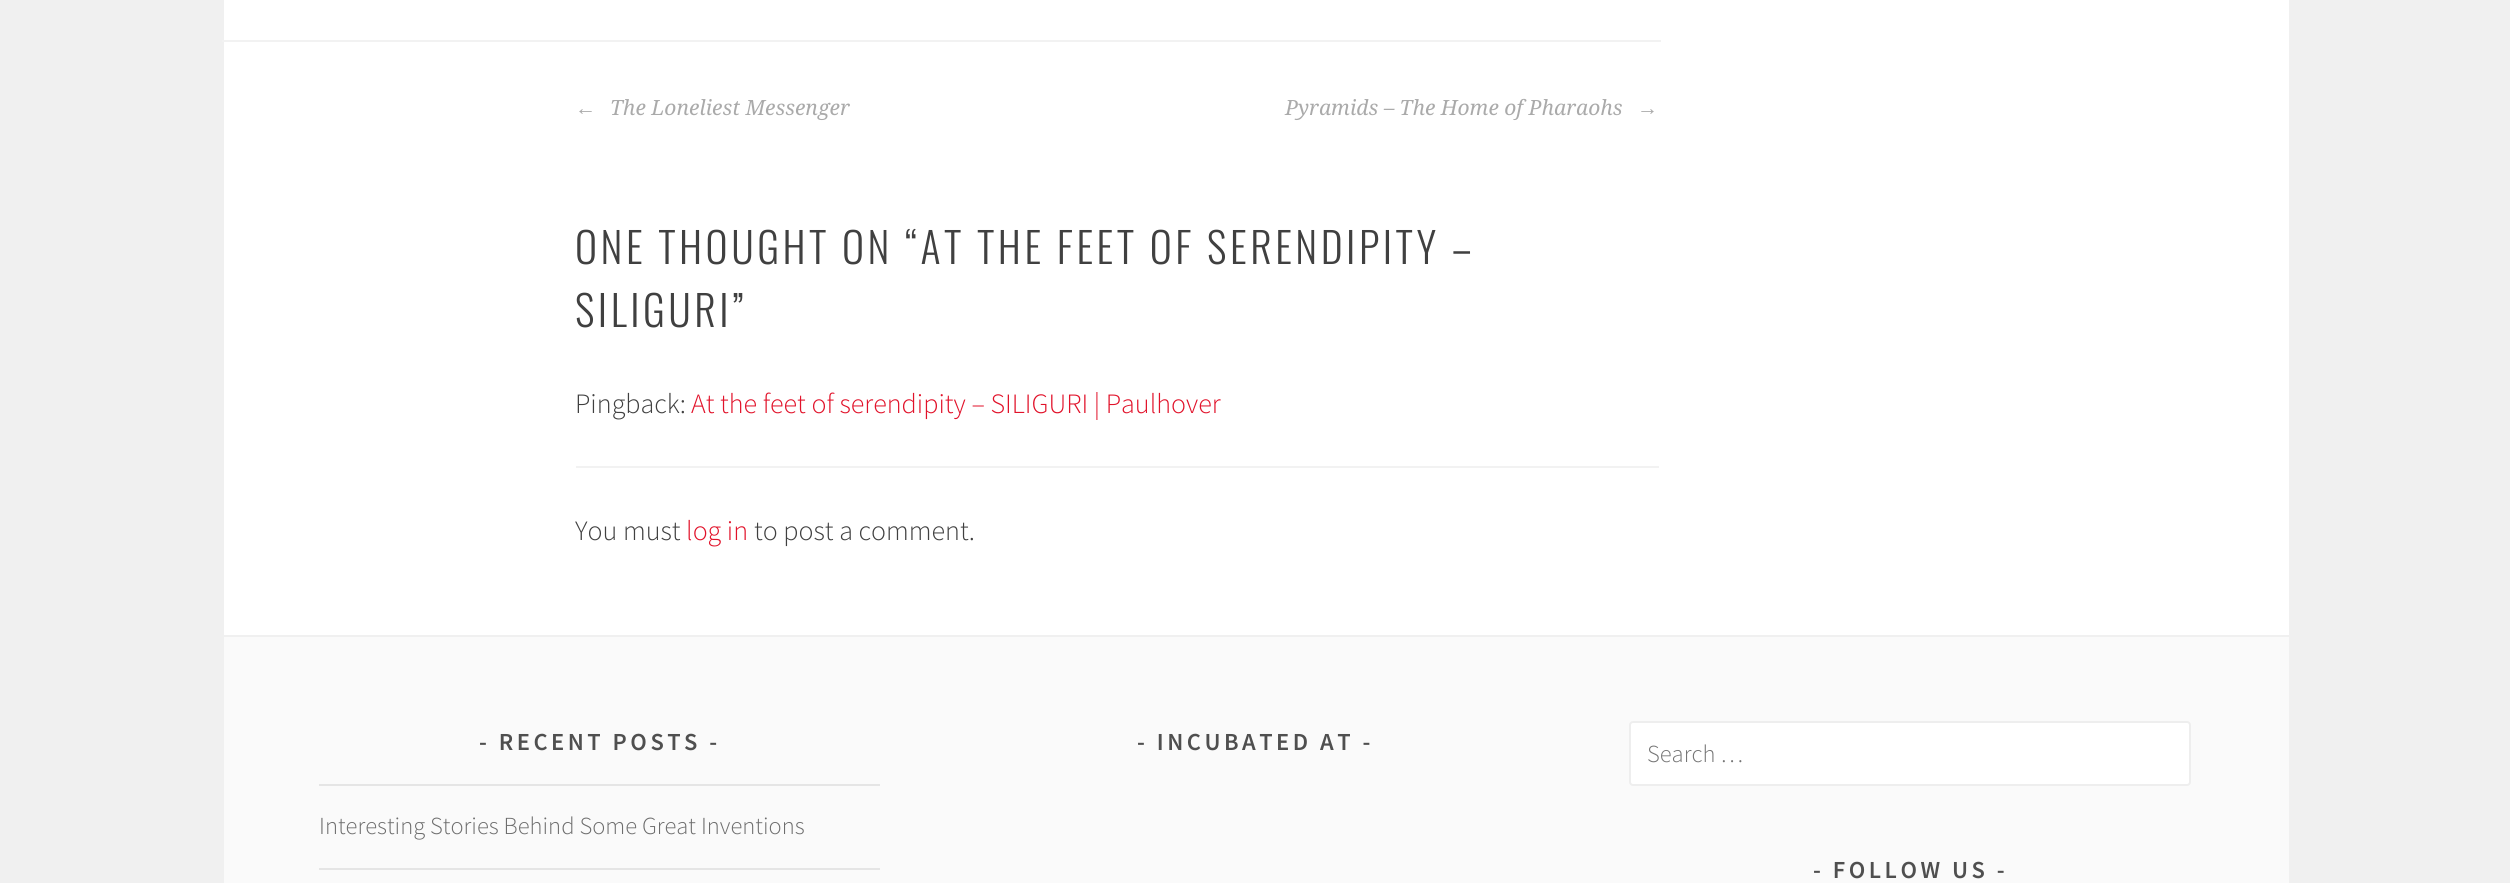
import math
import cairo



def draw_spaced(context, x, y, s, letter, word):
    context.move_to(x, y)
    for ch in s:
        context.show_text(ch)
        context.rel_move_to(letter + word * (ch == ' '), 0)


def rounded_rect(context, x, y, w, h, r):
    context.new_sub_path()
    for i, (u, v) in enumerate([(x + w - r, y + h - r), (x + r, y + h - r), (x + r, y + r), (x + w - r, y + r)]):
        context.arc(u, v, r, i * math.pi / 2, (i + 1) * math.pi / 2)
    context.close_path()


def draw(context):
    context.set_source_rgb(240 / 255, 240 / 255, 240 / 255)
    context.paint()
    context.set_source_rgb(1, 1, 1)
    context.rectangle(224, 0, 2065, 635)
    context.fill()
    context.set_source_rgb(242 / 255, 242 / 255, 242 / 255)
    context.rectangle(222, 40, 1439, 2)
    context.fill()
    context.rectangle(576, 466, 1083, 2)
    context.fill()
    context.set_source_rgb(250 / 255, 250 / 255, 250 / 255)
    context.rectangle(224, 637, 2065, 246)
    context.fill()
    context.set_source_rgb(229 / 255, 229 / 255, 229 / 255)
    context.rectangle(319, 784, 561, 2)
    context.fill()
    context.rectangle(319, 868, 561, 2)
    context.fill()
    context.set_source_rgb(1, 1, 1)
    rounded_rect(context, 1630, 722, 560, 63, 3)
    context.fill_preserve()
    context.set_source_rgb(238 / 255, 238 / 255, 238 / 255)
    context.stroke()
    context.select_font_face("Liberation Serif", cairo.FontSlant.ITALIC)
    context.set_font_size(21)
    context.set_source_rgb(170 / 255, 170 / 255, 170 / 255)
    context.move_to(575, 115)
    context.show_text("←")
    context.select_font_face("Droid Serif", cairo.FontSlant.ITALIC)
    context.move_to(610, 115)
    context.show_text("The Loneliest Messenger")
    context.move_to(1285, 115)
    context.show_text("Pyramids – The Home of Pharaohs")
    context.select_font_face("Liberation Serif", cairo.FontSlant.ITALIC)
    context.move_to(1637, 115)
    context.show_text("→")
    context.select_font_face("Oswald Light")
    context.set_font_size(42)
    context.set_source_rgb(64 / 255, 64 / 255, 64 / 255)
    draw_spaced(context, 575, 264, "ONE THOUGHT ON “AT THE FEET OF SERENDIPITY –", 3.5, 0)
    draw_spaced(context, 575, 327, "SILIGURI”", 3.5, 0)
    context.select_font_face("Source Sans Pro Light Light")
    context.set_font_size(28)
    context.move_to(575, 413)
    context.show_text("Pingback:")
    context.set_source_rgb(225 / 255, 18 / 255, 42 / 255)
    context.move_to(691, 413)
    context.show_text("At the feet of serendipity – SILIGURI | Paulhover")
    context.set_source_rgb(64 / 255, 64 / 255, 64 / 255)
    context.move_to(575, 540)
    context.show_text("You must")
    context.set_source_rgb(225 / 255, 18 / 255, 42 / 255)
    context.move_to(686, 540)
    context.show_text("log in")
    context.set_source_rgb(64 / 255, 64 / 255, 64 / 255)
    context.move_to(754, 540)
    context.show_text("to post a comment.")
    context.select_font_face("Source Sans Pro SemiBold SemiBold")
    context.set_font_size(24.5)
    context.set_source_rgb(79 / 255, 79 / 255, 79 / 255)
    draw_spaced(context, 479, 750, "- RECENT POSTS -", 3.5, 0)
    context.select_font_face("Source Sans Pro Light Light")
    context.set_source_rgb(109 / 255, 109 / 255, 109 / 255)
    context.move_to(319, 834)
    context.show_text("Interesting Stories Behind Some Great Inventions")
    context.select_font_face("Source Sans Pro SemiBold SemiBold")
    context.set_source_rgb(79 / 255, 79 / 255, 79 / 255)
    draw_spaced(context, 1137, 750, "- INCUBATED AT -", 3.5, 0)
    context.select_font_face("Source Sans Pro Light Light")
    context.set_source_rgb(117 / 255, 117 / 255, 117 / 255)
    context.move_to(1647, 762)
    context.show_text("Search …")
    context.select_font_face("Source Sans Pro SemiBold SemiBold")
    context.set_source_rgb(79 / 255, 79 / 255, 79 / 255)
    draw_spaced(context, 1813, 878, "- FOLLOW US -", 3.5, 0)


surface = cairo.ImageSurface(cairo.Format.RGB24, 2510, 883)
context = cairo.Context(surface)
options = cairo.FontOptions()
options.set_hint_metrics(cairo.HintMetrics.OFF)
options.set_hint_style(cairo.HintStyle.NONE)
context.set_font_options(options)
context.set_miter_limit(4)
draw(context)
surface.write_to_png("out.png")
